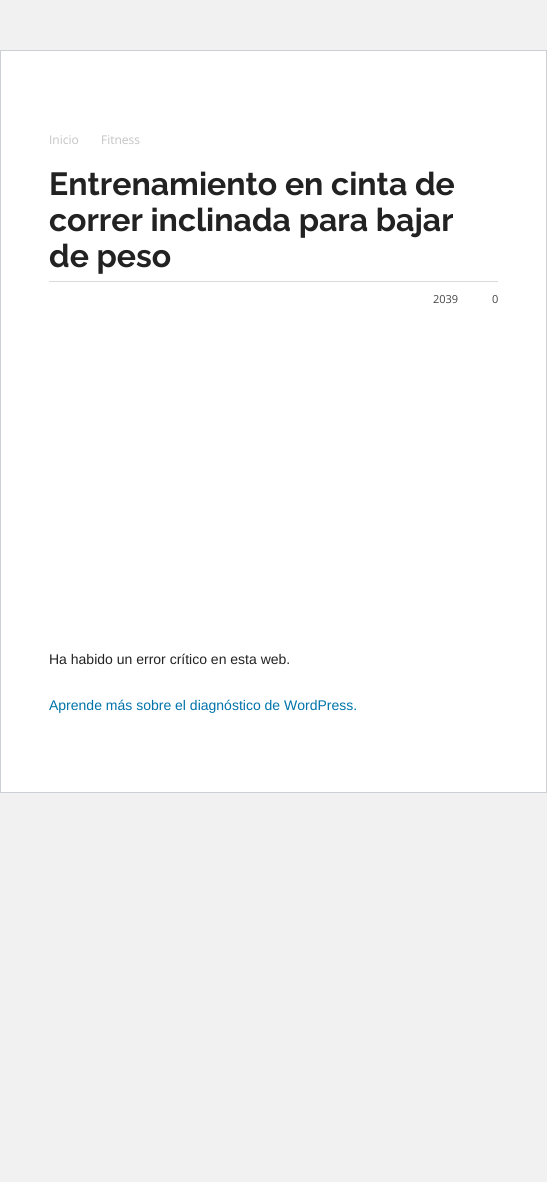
import math
import cairo



def draw(context):
    context.set_source_rgb(241 / 255, 241 / 255, 241 / 255)
    context.paint()
    context.set_source_rgb(1, 1, 1)
    context.rectangle(0.5, 50.5, 546, 742)
    context.fill_preserve()
    context.set_source_rgb(204 / 255, 208 / 255, 212 / 255)
    context.set_line_width(1)
    context.stroke()
    context.set_source_rgb(218 / 255, 218 / 255, 218 / 255)
    context.rectangle(49, 281, 449, 1)
    context.fill()
    context.select_font_face("Open Sans")
    context.set_font_size(12)
    context.set_source_rgb(195 / 255, 195 / 255, 195 / 255)
    context.move_to(49, 144)
    context.show_text("Inicio")
    context.move_to(101, 144)
    context.show_text("Fitness")
    context.select_font_face("Raleway", cairo.FontSlant.NORMAL, cairo.FontWeight.BOLD)
    context.set_font_size(32)
    context.set_source_rgb(34 / 255, 34 / 255, 34 / 255)
    context.move_to(49, 195)
    context.show_text("Entrenamiento en cinta de")
    context.move_to(49, 231)
    context.show_text("correr inclinada para bajar")
    context.move_to(49, 267)
    context.show_text("de peso")
    context.select_font_face("Open Sans")
    context.set_font_size(11)
    context.set_source_rgb(68 / 255, 68 / 255, 68 / 255)
    context.move_to(433, 303)
    context.show_text("2039")
    context.move_to(492, 303)
    context.show_text("0")
    context.select_font_face("Liberation Sans")
    context.set_font_size(14)
    context.set_source_rgb(34 / 255, 34 / 255, 34 / 255)
    context.move_to(49, 664)
    context.show_text("Ha habido un error crítico en esta web.")
    context.set_source_rgb(0, 115 / 255, 170 / 255)
    context.move_to(49, 710)
    context.show_text("Aprende más sobre el diagnóstico de WordPress.")


surface = cairo.ImageSurface(cairo.Format.RGB24, 547, 1182)
context = cairo.Context(surface)
options = cairo.FontOptions()
options.set_hint_metrics(cairo.HintMetrics.OFF)
options.set_hint_style(cairo.HintStyle.NONE)
context.set_font_options(options)
context.set_miter_limit(4)
draw(context)
surface.write_to_png("out.png")
